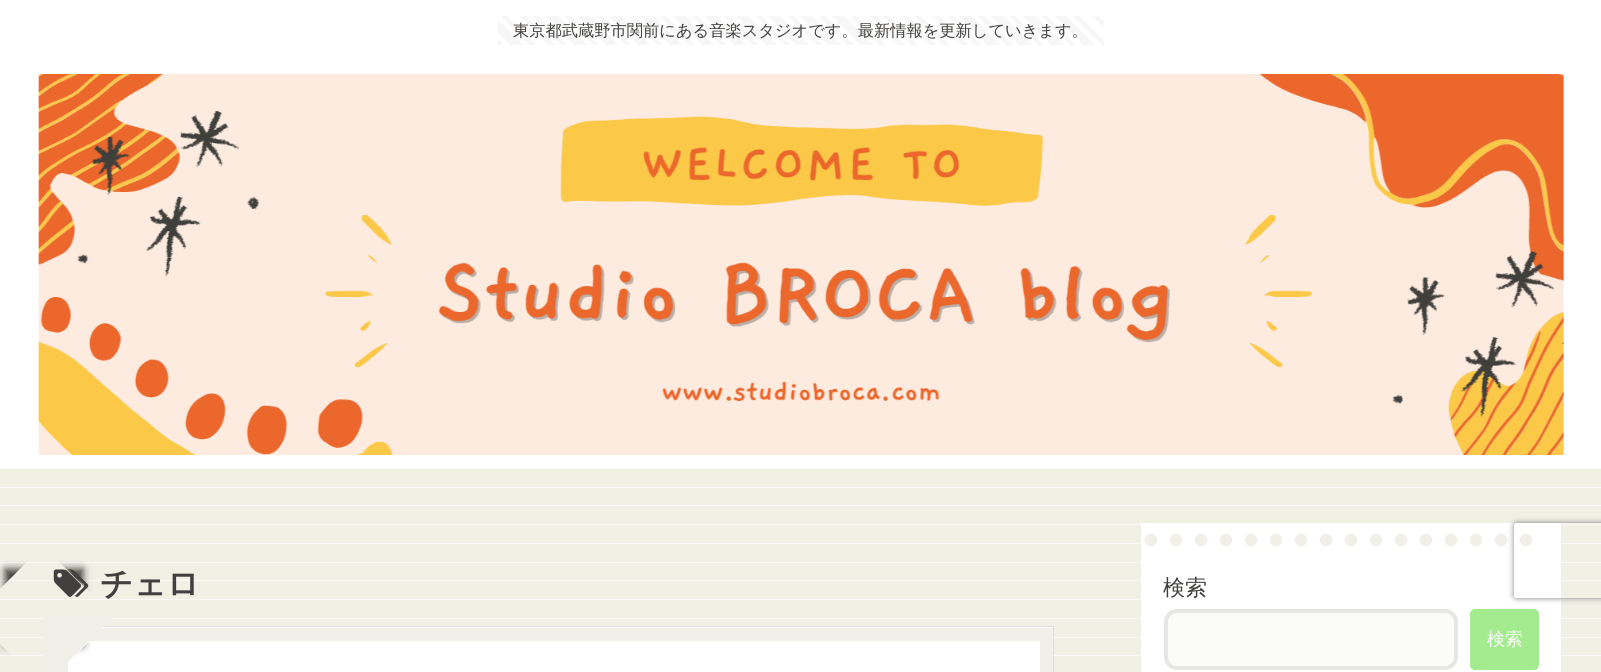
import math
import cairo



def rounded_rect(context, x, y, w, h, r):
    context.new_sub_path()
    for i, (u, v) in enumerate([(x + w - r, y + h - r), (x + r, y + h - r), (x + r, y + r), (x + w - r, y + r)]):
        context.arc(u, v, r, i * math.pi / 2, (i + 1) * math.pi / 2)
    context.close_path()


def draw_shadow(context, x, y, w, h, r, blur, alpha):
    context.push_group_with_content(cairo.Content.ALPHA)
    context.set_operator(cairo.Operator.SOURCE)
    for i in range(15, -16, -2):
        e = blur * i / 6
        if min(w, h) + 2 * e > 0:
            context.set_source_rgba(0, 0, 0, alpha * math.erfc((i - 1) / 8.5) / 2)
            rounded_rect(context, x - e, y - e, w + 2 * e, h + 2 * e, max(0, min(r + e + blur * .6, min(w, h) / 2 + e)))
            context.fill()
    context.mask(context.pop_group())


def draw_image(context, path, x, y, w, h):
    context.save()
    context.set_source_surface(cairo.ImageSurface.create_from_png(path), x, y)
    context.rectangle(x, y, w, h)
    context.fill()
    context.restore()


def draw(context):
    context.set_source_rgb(240 / 255, 240 / 255, 229 / 255)
    context.paint()
    draw_image(context, "images/1.png", 0, 468, 1601, 188)
    context.set_source_rgb(1, 1, 1)
    context.rectangle(0, 0, 1601, 468)
    context.fill()
    gradient = cairo.LinearGradient(642, 189, 960, -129)
    gradient.add_color_stop_rgba(0, 247 / 255, 247 / 255, 247 / 255, 1)
    gradient.add_color_stop_rgba(0.01, 247 / 255, 247 / 255, 247 / 255, 1)
    gradient.add_color_stop_rgba(0.01, 1, 1, 1, 1)
    gradient.add_color_stop_rgba(0.02, 1, 1, 1, 1)
    gradient.add_color_stop_rgba(0.02, 247 / 255, 247 / 255, 247 / 255, 1)
    gradient.add_color_stop_rgba(0.03, 247 / 255, 247 / 255, 247 / 255, 1)
    gradient.add_color_stop_rgba(0.03, 1, 1, 1, 1)
    gradient.add_color_stop_rgba(0.03, 247 / 255, 247 / 255, 247 / 255, 1)
    gradient.add_color_stop_rgba(0.04, 247 / 255, 247 / 255, 247 / 255, 1)
    gradient.add_color_stop_rgba(0.04, 1, 1, 1, 1)
    gradient.add_color_stop_rgba(0.05, 1, 1, 1, 1)
    gradient.add_color_stop_rgba(0.05, 247 / 255, 247 / 255, 247 / 255, 1)
    gradient.add_color_stop_rgba(0.06, 247 / 255, 247 / 255, 247 / 255, 1)
    gradient.add_color_stop_rgba(0.06, 1, 1, 1, 1)
    gradient.add_color_stop_rgba(0.07, 1, 1, 1, 1)
    gradient.add_color_stop_rgba(0.07, 247 / 255, 247 / 255, 247 / 255, 1)
    gradient.add_color_stop_rgba(0.07, 1, 1, 1, 1)
    gradient.add_color_stop_rgba(0.08, 1, 1, 1, 1)
    gradient.add_color_stop_rgba(0.08, 247 / 255, 247 / 255, 247 / 255, 1)
    gradient.add_color_stop_rgba(0.09, 247 / 255, 247 / 255, 247 / 255, 1)
    gradient.add_color_stop_rgba(0.09, 1, 1, 1, 1)
    gradient.add_color_stop_rgba(0.1, 1, 1, 1, 1)
    gradient.add_color_stop_rgba(0.1, 247 / 255, 247 / 255, 247 / 255, 1)
    gradient.add_color_stop_rgba(0.11, 247 / 255, 247 / 255, 247 / 255, 1)
    gradient.add_color_stop_rgba(0.11, 1, 1, 1, 1)
    gradient.add_color_stop_rgba(0.12, 1, 1, 1, 1)
    gradient.add_color_stop_rgba(0.12, 247 / 255, 247 / 255, 247 / 255, 1)
    gradient.add_color_stop_rgba(0.13, 247 / 255, 247 / 255, 247 / 255, 1)
    gradient.add_color_stop_rgba(0.13, 1, 1, 1, 1)
    gradient.add_color_stop_rgba(0.13, 247 / 255, 247 / 255, 247 / 255, 1)
    gradient.add_color_stop_rgba(0.14, 247 / 255, 247 / 255, 247 / 255, 1)
    gradient.add_color_stop_rgba(0.14, 1, 1, 1, 1)
    gradient.add_color_stop_rgba(0.15, 1, 1, 1, 1)
    gradient.add_color_stop_rgba(0.15, 247 / 255, 247 / 255, 247 / 255, 1)
    gradient.add_color_stop_rgba(0.16, 247 / 255, 247 / 255, 247 / 255, 1)
    gradient.add_color_stop_rgba(0.16, 1, 1, 1, 1)
    gradient.add_color_stop_rgba(0.17, 1, 1, 1, 1)
    gradient.add_color_stop_rgba(0.17, 247 / 255, 247 / 255, 247 / 255, 1)
    gradient.add_color_stop_rgba(0.18, 247 / 255, 247 / 255, 247 / 255, 1)
    gradient.add_color_stop_rgba(0.18, 1, 1, 1, 1)
    gradient.add_color_stop_rgba(0.18, 247 / 255, 247 / 255, 247 / 255, 1)
    gradient.add_color_stop_rgba(0.19, 247 / 255, 247 / 255, 247 / 255, 1)
    gradient.add_color_stop_rgba(0.19, 1, 1, 1, 1)
    gradient.add_color_stop_rgba(0.2, 1, 1, 1, 1)
    gradient.add_color_stop_rgba(0.2, 247 / 255, 247 / 255, 247 / 255, 1)
    gradient.add_color_stop_rgba(0.21, 247 / 255, 247 / 255, 247 / 255, 1)
    gradient.add_color_stop_rgba(0.21, 1, 1, 1, 1)
    gradient.add_color_stop_rgba(0.22, 1, 1, 1, 1)
    gradient.add_color_stop_rgba(0.22, 247 / 255, 247 / 255, 247 / 255, 1)
    gradient.add_color_stop_rgba(0.23, 247 / 255, 247 / 255, 247 / 255, 1)
    gradient.add_color_stop_rgba(0.23, 1, 1, 1, 1)
    gradient.add_color_stop_rgba(0.23, 247 / 255, 247 / 255, 247 / 255, 1)
    gradient.add_color_stop_rgba(0.24, 247 / 255, 247 / 255, 247 / 255, 1)
    gradient.add_color_stop_rgba(0.24, 1, 1, 1, 1)
    gradient.add_color_stop_rgba(0.25, 1, 1, 1, 1)
    gradient.add_color_stop_rgba(0.25, 247 / 255, 247 / 255, 247 / 255, 1)
    gradient.add_color_stop_rgba(0.26, 247 / 255, 247 / 255, 247 / 255, 1)
    gradient.add_color_stop_rgba(0.26, 1, 1, 1, 1)
    gradient.add_color_stop_rgba(0.27, 1, 1, 1, 1)
    gradient.add_color_stop_rgba(0.27, 247 / 255, 247 / 255, 247 / 255, 1)
    gradient.add_color_stop_rgba(0.28, 247 / 255, 247 / 255, 247 / 255, 1)
    gradient.add_color_stop_rgba(0.28, 1, 1, 1, 1)
    gradient.add_color_stop_rgba(0.28, 247 / 255, 247 / 255, 247 / 255, 1)
    gradient.add_color_stop_rgba(0.29, 247 / 255, 247 / 255, 247 / 255, 1)
    gradient.add_color_stop_rgba(0.29, 1, 1, 1, 1)
    gradient.add_color_stop_rgba(0.3, 1, 1, 1, 1)
    gradient.add_color_stop_rgba(0.3, 247 / 255, 247 / 255, 247 / 255, 1)
    gradient.add_color_stop_rgba(0.31, 247 / 255, 247 / 255, 247 / 255, 1)
    gradient.add_color_stop_rgba(0.31, 1, 1, 1, 1)
    gradient.add_color_stop_rgba(0.32, 1, 1, 1, 1)
    gradient.add_color_stop_rgba(0.32, 247 / 255, 247 / 255, 247 / 255, 1)
    gradient.add_color_stop_rgba(0.33, 247 / 255, 247 / 255, 247 / 255, 1)
    gradient.add_color_stop_rgba(0.33, 1, 1, 1, 1)
    gradient.add_color_stop_rgba(0.33, 247 / 255, 247 / 255, 247 / 255, 1)
    gradient.add_color_stop_rgba(0.34, 247 / 255, 247 / 255, 247 / 255, 1)
    gradient.add_color_stop_rgba(0.34, 1, 1, 1, 1)
    gradient.add_color_stop_rgba(0.35, 1, 1, 1, 1)
    gradient.add_color_stop_rgba(0.35, 247 / 255, 247 / 255, 247 / 255, 1)
    gradient.add_color_stop_rgba(0.36, 247 / 255, 247 / 255, 247 / 255, 1)
    gradient.add_color_stop_rgba(0.36, 1, 1, 1, 1)
    gradient.add_color_stop_rgba(0.37, 1, 1, 1, 1)
    gradient.add_color_stop_rgba(0.37, 247 / 255, 247 / 255, 247 / 255, 1)
    gradient.add_color_stop_rgba(0.38, 247 / 255, 247 / 255, 247 / 255, 1)
    gradient.add_color_stop_rgba(0.38, 1, 1, 1, 1)
    gradient.add_color_stop_rgba(0.38, 247 / 255, 247 / 255, 247 / 255, 1)
    gradient.add_color_stop_rgba(0.39, 247 / 255, 247 / 255, 247 / 255, 1)
    gradient.add_color_stop_rgba(0.39, 1, 1, 1, 1)
    gradient.add_color_stop_rgba(0.4, 1, 1, 1, 1)
    gradient.add_color_stop_rgba(0.4, 247 / 255, 247 / 255, 247 / 255, 1)
    gradient.add_color_stop_rgba(0.41, 247 / 255, 247 / 255, 247 / 255, 1)
    gradient.add_color_stop_rgba(0.41, 1, 1, 1, 1)
    gradient.add_color_stop_rgba(0.42, 1, 1, 1, 1)
    gradient.add_color_stop_rgba(0.42, 247 / 255, 247 / 255, 247 / 255, 1)
    gradient.add_color_stop_rgba(0.43, 247 / 255, 247 / 255, 247 / 255, 1)
    gradient.add_color_stop_rgba(0.43, 1, 1, 1, 1)
    gradient.add_color_stop_rgba(0.43, 247 / 255, 247 / 255, 247 / 255, 1)
    gradient.add_color_stop_rgba(0.44, 247 / 255, 247 / 255, 247 / 255, 1)
    gradient.add_color_stop_rgba(0.44, 1, 1, 1, 1)
    gradient.add_color_stop_rgba(0.45, 1, 1, 1, 1)
    gradient.add_color_stop_rgba(0.45, 247 / 255, 247 / 255, 247 / 255, 1)
    gradient.add_color_stop_rgba(0.46, 247 / 255, 247 / 255, 247 / 255, 1)
    gradient.add_color_stop_rgba(0.46, 1, 1, 1, 1)
    gradient.add_color_stop_rgba(0.47, 1, 1, 1, 1)
    gradient.add_color_stop_rgba(0.47, 247 / 255, 247 / 255, 247 / 255, 1)
    gradient.add_color_stop_rgba(0.48, 247 / 255, 247 / 255, 247 / 255, 1)
    gradient.add_color_stop_rgba(0.48, 1, 1, 1, 1)
    gradient.add_color_stop_rgba(0.48, 247 / 255, 247 / 255, 247 / 255, 1)
    gradient.add_color_stop_rgba(0.49, 247 / 255, 247 / 255, 247 / 255, 1)
    gradient.add_color_stop_rgba(0.49, 1, 1, 1, 1)
    gradient.add_color_stop_rgba(0.5, 1, 1, 1, 1)
    gradient.add_color_stop_rgba(0.5, 247 / 255, 247 / 255, 247 / 255, 1)
    gradient.add_color_stop_rgba(0.51, 247 / 255, 247 / 255, 247 / 255, 1)
    gradient.add_color_stop_rgba(0.51, 1, 1, 1, 1)
    gradient.add_color_stop_rgba(0.52, 1, 1, 1, 1)
    gradient.add_color_stop_rgba(0.52, 247 / 255, 247 / 255, 247 / 255, 1)
    gradient.add_color_stop_rgba(0.53, 247 / 255, 247 / 255, 247 / 255, 1)
    gradient.add_color_stop_rgba(0.53, 1, 1, 1, 1)
    gradient.add_color_stop_rgba(0.53, 247 / 255, 247 / 255, 247 / 255, 1)
    gradient.add_color_stop_rgba(0.54, 247 / 255, 247 / 255, 247 / 255, 1)
    gradient.add_color_stop_rgba(0.54, 1, 1, 1, 1)
    gradient.add_color_stop_rgba(0.55, 1, 1, 1, 1)
    gradient.add_color_stop_rgba(0.55, 247 / 255, 247 / 255, 247 / 255, 1)
    gradient.add_color_stop_rgba(0.56, 247 / 255, 247 / 255, 247 / 255, 1)
    gradient.add_color_stop_rgba(0.56, 1, 1, 1, 1)
    gradient.add_color_stop_rgba(0.57, 1, 1, 1, 1)
    gradient.add_color_stop_rgba(0.57, 247 / 255, 247 / 255, 247 / 255, 1)
    gradient.add_color_stop_rgba(0.58, 247 / 255, 247 / 255, 247 / 255, 1)
    gradient.add_color_stop_rgba(0.58, 1, 1, 1, 1)
    gradient.add_color_stop_rgba(0.58, 247 / 255, 247 / 255, 247 / 255, 1)
    gradient.add_color_stop_rgba(0.59, 247 / 255, 247 / 255, 247 / 255, 1)
    gradient.add_color_stop_rgba(0.59, 1, 1, 1, 1)
    gradient.add_color_stop_rgba(0.6, 1, 1, 1, 1)
    gradient.add_color_stop_rgba(0.6, 247 / 255, 247 / 255, 247 / 255, 1)
    gradient.add_color_stop_rgba(0.61, 247 / 255, 247 / 255, 247 / 255, 1)
    gradient.add_color_stop_rgba(0.61, 1, 1, 1, 1)
    gradient.add_color_stop_rgba(0.62, 1, 1, 1, 1)
    gradient.add_color_stop_rgba(0.62, 247 / 255, 247 / 255, 247 / 255, 1)
    gradient.add_color_stop_rgba(0.62, 1, 1, 1, 1)
    gradient.add_color_stop_rgba(0.63, 1, 1, 1, 1)
    gradient.add_color_stop_rgba(0.63, 247 / 255, 247 / 255, 247 / 255, 1)
    gradient.add_color_stop_rgba(0.64, 247 / 255, 247 / 255, 247 / 255, 1)
    gradient.add_color_stop_rgba(0.64, 1, 1, 1, 1)
    gradient.add_color_stop_rgba(0.65, 1, 1, 1, 1)
    gradient.add_color_stop_rgba(0.65, 247 / 255, 247 / 255, 247 / 255, 1)
    gradient.add_color_stop_rgba(0.66, 247 / 255, 247 / 255, 247 / 255, 1)
    gradient.add_color_stop_rgba(0.66, 1, 1, 1, 1)
    gradient.add_color_stop_rgba(0.67, 1, 1, 1, 1)
    gradient.add_color_stop_rgba(0.67, 247 / 255, 247 / 255, 247 / 255, 1)
    gradient.add_color_stop_rgba(0.67, 1, 1, 1, 1)
    gradient.add_color_stop_rgba(0.68, 1, 1, 1, 1)
    gradient.add_color_stop_rgba(0.68, 247 / 255, 247 / 255, 247 / 255, 1)
    gradient.add_color_stop_rgba(0.69, 247 / 255, 247 / 255, 247 / 255, 1)
    gradient.add_color_stop_rgba(0.69, 1, 1, 1, 1)
    gradient.add_color_stop_rgba(0.7, 1, 1, 1, 1)
    gradient.add_color_stop_rgba(0.7, 247 / 255, 247 / 255, 247 / 255, 1)
    gradient.add_color_stop_rgba(0.71, 247 / 255, 247 / 255, 247 / 255, 1)
    gradient.add_color_stop_rgba(0.71, 1, 1, 1, 1)
    gradient.add_color_stop_rgba(0.72, 1, 1, 1, 1)
    gradient.add_color_stop_rgba(0.72, 247 / 255, 247 / 255, 247 / 255, 1)
    gradient.add_color_stop_rgba(0.72, 1, 1, 1, 1)
    gradient.add_color_stop_rgba(0.73, 1, 1, 1, 1)
    gradient.add_color_stop_rgba(0.73, 247 / 255, 247 / 255, 247 / 255, 1)
    gradient.add_color_stop_rgba(0.74, 247 / 255, 247 / 255, 247 / 255, 1)
    gradient.add_color_stop_rgba(0.74, 1, 1, 1, 1)
    gradient.add_color_stop_rgba(0.75, 1, 1, 1, 1)
    gradient.add_color_stop_rgba(0.75, 247 / 255, 247 / 255, 247 / 255, 1)
    gradient.add_color_stop_rgba(0.76, 247 / 255, 247 / 255, 247 / 255, 1)
    gradient.add_color_stop_rgba(0.76, 1, 1, 1, 1)
    gradient.add_color_stop_rgba(0.77, 1, 1, 1, 1)
    gradient.add_color_stop_rgba(0.77, 247 / 255, 247 / 255, 247 / 255, 1)
    gradient.add_color_stop_rgba(0.78, 247 / 255, 247 / 255, 247 / 255, 1)
    gradient.add_color_stop_rgba(0.78, 1, 1, 1, 1)
    gradient.add_color_stop_rgba(0.78, 247 / 255, 247 / 255, 247 / 255, 1)
    gradient.add_color_stop_rgba(0.79, 247 / 255, 247 / 255, 247 / 255, 1)
    gradient.add_color_stop_rgba(0.79, 1, 1, 1, 1)
    gradient.add_color_stop_rgba(0.8, 1, 1, 1, 1)
    gradient.add_color_stop_rgba(0.8, 247 / 255, 247 / 255, 247 / 255, 1)
    gradient.add_color_stop_rgba(0.81, 247 / 255, 247 / 255, 247 / 255, 1)
    gradient.add_color_stop_rgba(0.81, 1, 1, 1, 1)
    gradient.add_color_stop_rgba(0.82, 1, 1, 1, 1)
    gradient.add_color_stop_rgba(0.82, 247 / 255, 247 / 255, 247 / 255, 1)
    gradient.add_color_stop_rgba(0.83, 247 / 255, 247 / 255, 247 / 255, 1)
    gradient.add_color_stop_rgba(0.83, 1, 1, 1, 1)
    gradient.add_color_stop_rgba(0.83, 247 / 255, 247 / 255, 247 / 255, 1)
    gradient.add_color_stop_rgba(0.84, 247 / 255, 247 / 255, 247 / 255, 1)
    gradient.add_color_stop_rgba(0.84, 1, 1, 1, 1)
    gradient.add_color_stop_rgba(0.85, 1, 1, 1, 1)
    gradient.add_color_stop_rgba(0.85, 247 / 255, 247 / 255, 247 / 255, 1)
    gradient.add_color_stop_rgba(0.86, 247 / 255, 247 / 255, 247 / 255, 1)
    gradient.add_color_stop_rgba(0.86, 1, 1, 1, 1)
    gradient.add_color_stop_rgba(0.87, 1, 1, 1, 1)
    gradient.add_color_stop_rgba(0.87, 247 / 255, 247 / 255, 247 / 255, 1)
    gradient.add_color_stop_rgba(0.88, 247 / 255, 247 / 255, 247 / 255, 1)
    gradient.add_color_stop_rgba(0.88, 1, 1, 1, 1)
    gradient.add_color_stop_rgba(0.88, 247 / 255, 247 / 255, 247 / 255, 1)
    gradient.add_color_stop_rgba(0.89, 247 / 255, 247 / 255, 247 / 255, 1)
    gradient.add_color_stop_rgba(0.89, 1, 1, 1, 1)
    gradient.add_color_stop_rgba(0.9, 1, 1, 1, 1)
    gradient.add_color_stop_rgba(0.9, 247 / 255, 247 / 255, 247 / 255, 1)
    gradient.add_color_stop_rgba(0.91, 247 / 255, 247 / 255, 247 / 255, 1)
    gradient.add_color_stop_rgba(0.91, 1, 1, 1, 1)
    gradient.add_color_stop_rgba(0.92, 1, 1, 1, 1)
    gradient.add_color_stop_rgba(0.92, 247 / 255, 247 / 255, 247 / 255, 1)
    gradient.add_color_stop_rgba(0.93, 247 / 255, 247 / 255, 247 / 255, 1)
    gradient.add_color_stop_rgba(0.93, 1, 1, 1, 1)
    gradient.add_color_stop_rgba(0.93, 247 / 255, 247 / 255, 247 / 255, 1)
    gradient.add_color_stop_rgba(0.94, 247 / 255, 247 / 255, 247 / 255, 1)
    gradient.add_color_stop_rgba(0.94, 1, 1, 1, 1)
    gradient.add_color_stop_rgba(0.95, 1, 1, 1, 1)
    gradient.add_color_stop_rgba(0.95, 247 / 255, 247 / 255, 247 / 255, 1)
    gradient.add_color_stop_rgba(0.96, 247 / 255, 247 / 255, 247 / 255, 1)
    gradient.add_color_stop_rgba(0.96, 1, 1, 1, 1)
    gradient.add_color_stop_rgba(0.97, 1, 1, 1, 1)
    gradient.add_color_stop_rgba(0.97, 247 / 255, 247 / 255, 247 / 255, 1)
    gradient.add_color_stop_rgba(0.97, 1, 1, 1, 1)
    gradient.add_color_stop_rgba(0.98, 1, 1, 1, 1)
    gradient.add_color_stop_rgba(0.98, 247 / 255, 247 / 255, 247 / 255, 1)
    gradient.add_color_stop_rgba(0.99, 247 / 255, 247 / 255, 247 / 255, 1)
    gradient.add_color_stop_rgba(0.99, 1, 1, 1, 1)
    gradient.add_color_stop_rgba(1, 1, 1, 1, 1)
    context.set_source(gradient)
    context.rectangle(498, 16, 606, 29)
    context.fill()
    draw_image(context, "images/2.png", 38, 74, 1526, 381)
    context.set_source_rgb(1, 1, 1)
    context.rectangle(68, 627, 985, 45)
    context.fill()
    context.rectangle(61.5, 634.5, 985, 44)
    context.set_source_rgb(240 / 255, 240 / 255, 232 / 255)
    context.set_line_width(13)
    context.stroke()
    context.rectangle(54.5, 626.5, 999, 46)
    context.set_source_rgb(221 / 255, 221 / 255, 221 / 255)
    context.set_line_width(1)
    context.stroke()
    draw_image(context, "images/3.png", 53, 569, 36, 28)
    context.save()
    context.set_fill_rule(cairo.FillRule.EVEN_ODD)
    context.new_path()
    context.move_to(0, 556)
    context.line_to(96, 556)
    context.line_to(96, 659)
    context.line_to(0, 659)
    context.close_path()
    context.move_to(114, 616.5)
    context.line_to(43, 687)
    context.line_to(-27.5, 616.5)
    context.line_to(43, 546)
    context.close_path()
    context.clip()
    context.set_source_rgb(65 / 255, 64 / 255, 62 / 255)
    draw_shadow(context, 5, 569, 78, 77, 0, 4, 1)
    context.restore()
    context.set_source_rgb(240 / 255, 240 / 255, 232 / 255)
    context.new_path()
    context.move_to(114, 616)
    context.line_to(43, 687)
    context.line_to(43, 616)
    context.close_path()
    context.fill()
    context.set_source_rgb(1, 1, 1)
    context.rectangle(1141, 523, 420, 149)
    context.fill()
    context.new_path()
    context.move_to(1151, 540)
    context.line_to(1550, 540)
    context.set_source_rgb(240 / 255, 240 / 255, 232 / 255)
    context.set_line_width(12.5)
    context.set_line_cap(cairo.LineCap.ROUND)
    context.set_dash([0, 25])
    context.stroke()
    context.set_source_rgb(251 / 255, 251 / 255, 248 / 255)
    rounded_rect(context, 1164, 609, 294, 61, 13)
    context.fill()
    rounded_rect(context, 1166, 611, 290, 57, 11)
    context.set_source_rgba(221 / 255, 221 / 255, 221 / 255, 0.7)
    context.set_line_width(4)
    context.set_line_cap(cairo.LineCap.BUTT)
    context.set_dash([])
    context.stroke()
    context.set_source_rgb(164 / 255, 234 / 255, 143 / 255)
    rounded_rect(context, 1470, 609, 69, 61, 5)
    context.fill()
    context.save()
    context.set_fill_rule(cairo.FillRule.EVEN_ODD)
    context.new_path()
    context.move_to(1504, 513)
    context.line_to(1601, 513)
    context.line_to(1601, 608)
    context.line_to(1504, 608)
    context.close_path()
    context.move_to(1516.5, 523)
    context.line_to(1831.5, 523)
    context.curve_to(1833, 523, 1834, 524, 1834, 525.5)
    context.line_to(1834, 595.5)
    context.curve_to(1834, 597, 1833, 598, 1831.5, 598)
    context.line_to(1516.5, 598)
    context.curve_to(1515, 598, 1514, 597, 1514, 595.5)
    context.line_to(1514, 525.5)
    context.curve_to(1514, 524, 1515, 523, 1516.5, 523)
    context.close_path()
    context.clip()
    context.set_source_rgb(128 / 255, 128 / 255, 128 / 255)
    draw_shadow(context, 1514, 523, 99, 75, 2.5, 3, 1)
    context.restore()
    context.select_font_face("WenQuanYi Zen Hei Medium")
    context.set_font_size(16.25)
    context.set_source_rgb(65 / 255, 64 / 255, 62 / 255)
    context.move_to(513, 36)
    context.show_text("東京都武蔵野市関前にある音楽スタジオです。最新情報を更新していきます。")
    context.select_font_face("WenQuanYi Zen Hei", cairo.FontSlant.NORMAL, cairo.FontWeight.BOLD)
    context.set_font_size(32.5)
    context.move_to(100, 595)
    context.show_text("チェロ")
    context.select_font_face("WenQuanYi Zen Hei Medium")
    context.set_font_size(22)
    context.move_to(1163, 595)
    context.show_text("検索")
    context.set_font_size(18)
    context.set_source_rgb(1, 1, 1)
    context.move_to(1487, 645)
    context.show_text("検索")


surface = cairo.ImageSurface(cairo.Format.RGB24, 1601, 672)
context = cairo.Context(surface)
options = cairo.FontOptions()
options.set_hint_metrics(cairo.HintMetrics.OFF)
options.set_hint_style(cairo.HintStyle.NONE)
context.set_font_options(options)
context.set_miter_limit(4)
draw(context)
surface.write_to_png("out.png")
